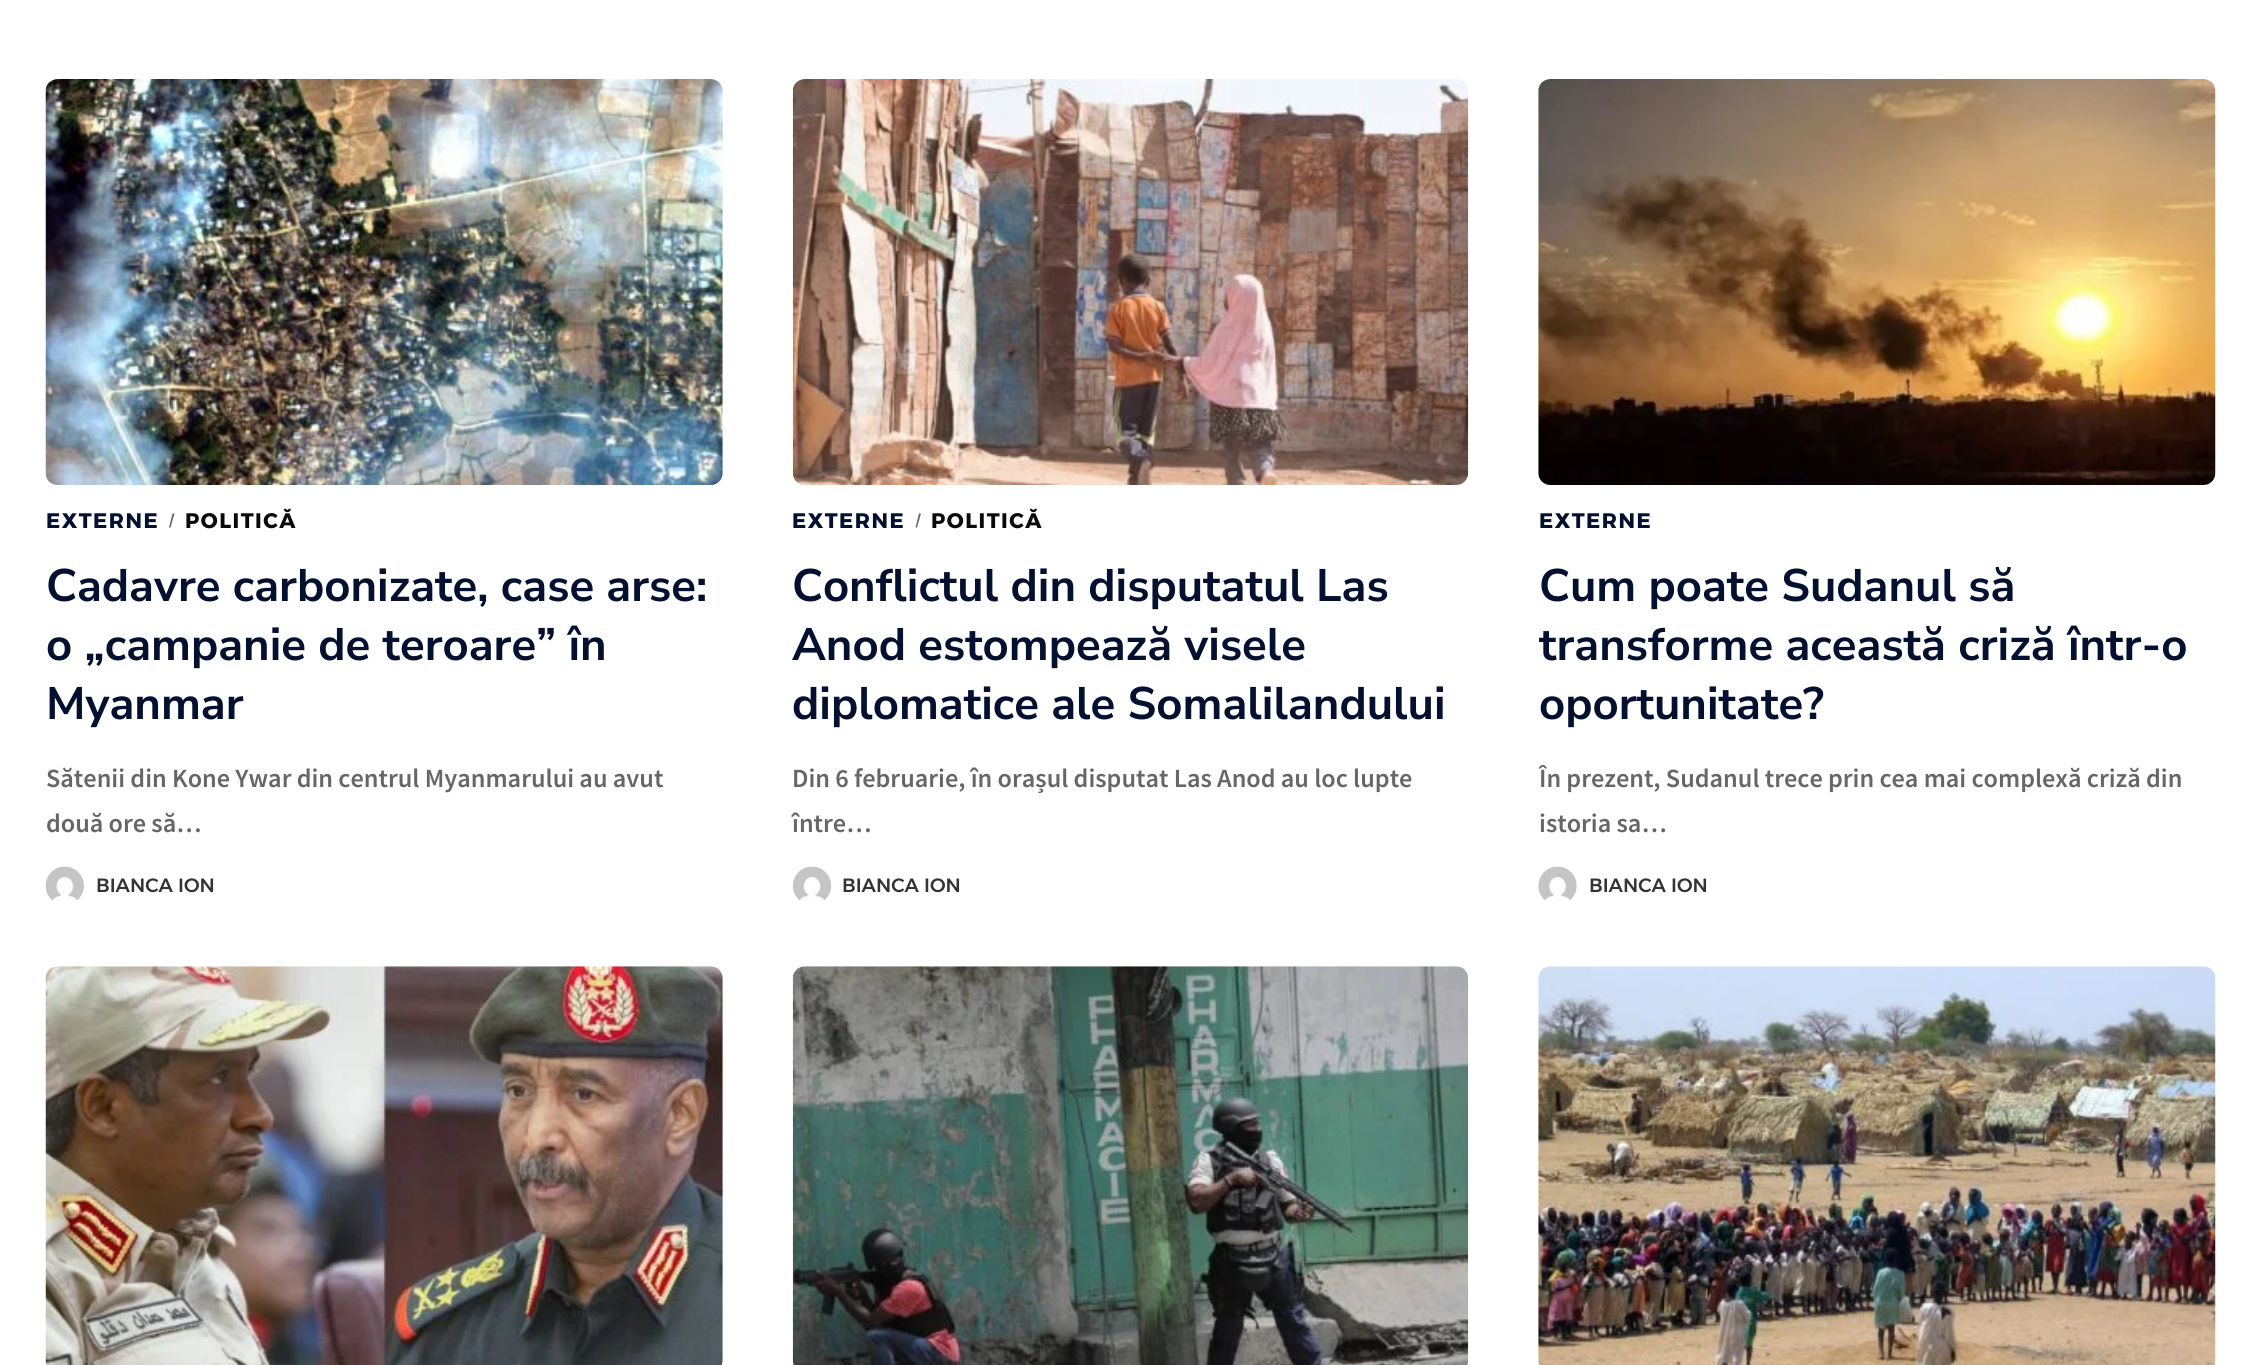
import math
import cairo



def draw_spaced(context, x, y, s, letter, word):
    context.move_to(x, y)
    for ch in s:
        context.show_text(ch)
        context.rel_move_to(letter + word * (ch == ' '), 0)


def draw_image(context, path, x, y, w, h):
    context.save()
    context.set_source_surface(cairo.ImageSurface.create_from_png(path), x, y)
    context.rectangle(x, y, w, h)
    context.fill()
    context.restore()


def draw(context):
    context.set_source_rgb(1, 1, 1)
    context.paint()
    draw_image(context, "images/1.png", 45, 79, 678, 406)
    context.set_source_rgb(102 / 255, 102 / 255, 102 / 255)
    context.new_path()
    context.move_to(172.5, 513.5)
    context.line_to(174.5, 513.5)
    context.line_to(170.5, 527.5)
    context.line_to(169, 527.5)
    context.close_path()
    context.fill()
    draw_image(context, "images/2.png", 45, 866, 39, 35)
    draw_image(context, "images/3.png", 792, 79, 677, 406)
    context.new_path()
    context.move_to(919, 513.5)
    context.line_to(921, 513.5)
    context.line_to(917, 527.5)
    context.line_to(915.5, 527.5)
    context.close_path()
    context.fill()
    draw_image(context, "images/4.png", 793, 866, 38, 35)
    draw_image(context, "images/5.png", 1538, 79, 678, 406)
    draw_image(context, "images/6.png", 1538, 866, 39, 35)
    draw_image(context, "images/7.png", 45, 966, 678, 399)
    draw_image(context, "images/8.png", 792, 966, 677, 399)
    draw_image(context, "images/9.png", 1538, 966, 678, 399)
    context.select_font_face("Alexandria", cairo.FontSlant.NORMAL, cairo.FontWeight.BOLD)
    context.set_font_size(21)
    context.set_source_rgb(4 / 255, 16 / 255, 47 / 255)
    draw_spaced(context, 46, 528, "EXTERNE", 1.5, 0)
    context.set_source_rgb(10 / 255, 10 / 255, 10 / 255)
    draw_spaced(context, 185, 528, "POLITICĂ", 1.5, 0)
    context.select_font_face("Nunito Sans", cairo.FontSlant.NORMAL, cairo.FontWeight.BOLD)
    context.set_font_size(45.5)
    context.set_source_rgb(4 / 255, 16 / 255, 47 / 255)
    context.move_to(46, 601)
    context.show_text("Cadavre carbonizate, case arse:")
    context.move_to(46, 660)
    context.show_text("o „campanie de teroare” în")
    context.move_to(46, 719)
    context.show_text("Myanmar")
    context.select_font_face("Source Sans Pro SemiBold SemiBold")
    context.set_font_size(26.25)
    context.set_source_rgb(102 / 255, 102 / 255, 102 / 255)
    context.move_to(46, 787)
    context.show_text("Sătenii din Kone Ywar din centrul Myanmarului au avut")
    context.move_to(46, 832)
    context.show_text("două ore să…")
    context.select_font_face("Alexandria Medium")
    context.set_font_size(19.25)
    context.set_source_rgb(51 / 255, 51 / 255, 51 / 255)
    context.move_to(96, 892)
    context.show_text("BIANCA ION")
    context.select_font_face("Alexandria", cairo.FontSlant.NORMAL, cairo.FontWeight.BOLD)
    context.set_font_size(21)
    context.set_source_rgb(4 / 255, 16 / 255, 47 / 255)
    draw_spaced(context, 792, 528, "EXTERNE", 1.5, 0)
    context.set_source_rgb(10 / 255, 10 / 255, 10 / 255)
    draw_spaced(context, 931, 528, "POLITICĂ", 1.5, 0)
    context.select_font_face("Nunito Sans", cairo.FontSlant.NORMAL, cairo.FontWeight.BOLD)
    context.set_font_size(45.5)
    context.set_source_rgb(4 / 255, 16 / 255, 47 / 255)
    context.move_to(792, 601)
    context.show_text("Conflictul din disputatul Las")
    context.move_to(792, 660)
    context.show_text("Anod estompează visele")
    context.move_to(792, 719)
    context.show_text("diplomatice ale Somalilandului")
    context.select_font_face("Source Sans Pro SemiBold SemiBold")
    context.set_font_size(26.25)
    context.set_source_rgb(102 / 255, 102 / 255, 102 / 255)
    context.move_to(792, 787)
    context.show_text("Din 6 februarie, în orașul disputat Las Anod au loc lupte")
    context.move_to(792, 832)
    context.show_text("între…")
    context.select_font_face("Alexandria Medium")
    context.set_font_size(19.25)
    context.set_source_rgb(51 / 255, 51 / 255, 51 / 255)
    context.move_to(842, 892)
    context.show_text("BIANCA ION")
    context.select_font_face("Alexandria", cairo.FontSlant.NORMAL, cairo.FontWeight.BOLD)
    context.set_font_size(21)
    context.set_source_rgb(4 / 255, 16 / 255, 47 / 255)
    draw_spaced(context, 1539, 528, "EXTERNE", 1.5, 0)
    context.select_font_face("Nunito Sans", cairo.FontSlant.NORMAL, cairo.FontWeight.BOLD)
    context.set_font_size(45.5)
    context.move_to(1539, 601)
    context.show_text("Cum poate Sudanul să")
    context.move_to(1539, 660)
    context.show_text("transforme această criză într-o")
    context.move_to(1539, 719)
    context.show_text("oportunitate?")
    context.select_font_face("Source Sans Pro SemiBold SemiBold")
    context.set_font_size(26.25)
    context.set_source_rgb(102 / 255, 102 / 255, 102 / 255)
    context.move_to(1539, 787)
    context.show_text("În prezent, Sudanul trece prin cea mai complexă criză din")
    context.move_to(1539, 832)
    context.show_text("istoria sa…")
    context.select_font_face("Alexandria Medium")
    context.set_font_size(19.25)
    context.set_source_rgb(51 / 255, 51 / 255, 51 / 255)
    context.move_to(1589, 892)
    context.show_text("BIANCA ION")


surface = cairo.ImageSurface(cairo.Format.RGB24, 2260, 1365)
context = cairo.Context(surface)
options = cairo.FontOptions()
options.set_hint_metrics(cairo.HintMetrics.OFF)
options.set_hint_style(cairo.HintStyle.NONE)
context.set_font_options(options)
context.set_miter_limit(4)
draw(context)
surface.write_to_png("out.png")
